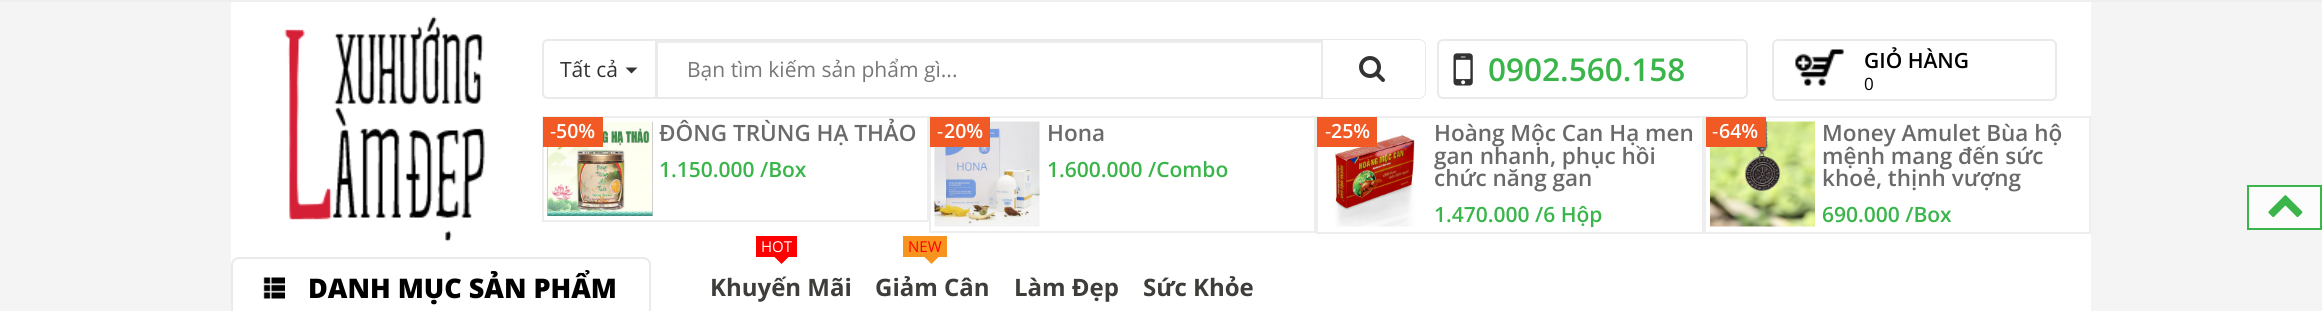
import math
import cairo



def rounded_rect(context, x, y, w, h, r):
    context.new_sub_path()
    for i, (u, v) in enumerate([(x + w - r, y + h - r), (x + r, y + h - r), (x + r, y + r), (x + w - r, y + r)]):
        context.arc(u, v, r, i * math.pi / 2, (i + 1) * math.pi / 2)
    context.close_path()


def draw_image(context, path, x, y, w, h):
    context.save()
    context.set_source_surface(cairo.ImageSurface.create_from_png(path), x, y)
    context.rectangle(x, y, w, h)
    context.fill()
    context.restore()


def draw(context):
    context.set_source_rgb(244 / 255, 244 / 255, 244 / 255)
    context.paint()
    context.set_source_rgb(239 / 255, 239 / 255, 239 / 255)
    context.rectangle(0, 0, 2322, 2)
    context.fill()
    context.set_source_rgb(1, 1, 1)
    context.rectangle(231, 2, 1860, 309)
    context.fill()
    draw_image(context, "images/1.png", 284, 16, 201, 226)
    context.new_path()
    context.move_to(548, 40)
    context.line_to(656, 40)
    context.line_to(656, 98)
    context.line_to(548, 98)
    context.curve_to(545, 98, 543, 96, 543, 93)
    context.line_to(543, 45)
    context.curve_to(543, 42, 545, 40, 548, 40)
    context.close_path()
    context.set_source_rgb(234 / 255, 234 / 255, 234 / 255)
    context.stroke()
    context.set_source_rgb(51 / 255, 51 / 255, 51 / 255)
    context.new_path()
    context.move_to(625.5, 67.5)
    context.line_to(637.5, 67.5)
    context.line_to(631.5, 73.5)
    context.close_path()
    context.fill()
    context.set_source_rgb(236 / 255, 236 / 255, 236 / 255)
    context.rectangle(657, 41, 665, 2)
    context.fill()
    context.set_source_rgb(234 / 255, 234 / 255, 234 / 255)
    context.set_fill_rule(cairo.FillRule.EVEN_ODD)
    context.new_path()
    context.move_to(1322, 39)
    context.line_to(1419, 39)
    context.curve_to(1423, 39, 1426, 42, 1426, 46)
    context.line_to(1426, 92)
    context.curve_to(1426, 96, 1423, 99, 1419, 99)
    context.line_to(1322, 99)
    context.close_path()
    context.move_to(1322, 40)
    context.line_to(1419, 40)
    context.curve_to(1422, 40, 1425, 43, 1425, 46)
    context.line_to(1425, 92)
    context.curve_to(1425, 95, 1422, 98, 1419, 98)
    context.line_to(1322, 98)
    context.close_path()
    context.fill()
    context.rectangle(657, 40, 665, 58)
    context.stroke()
    draw_image(context, "images/2.png", 1359, 56, 26, 26)
    rounded_rect(context, 1438, 40, 309, 58, 5)
    context.stroke()
    draw_image(context, "images/3.png", 1453, 53, 20, 33)
    rounded_rect(context, 1773, 40, 283, 60, 5)
    context.stroke()
    draw_image(context, "images/4.png", 1795, 49, 50, 37)
    context.rectangle(543, 117, 385, 104)
    context.set_source_rgb(238 / 255, 238 / 255, 238 / 255)
    context.stroke()
    draw_image(context, "images/5.png", 547, 121, 106, 95)
    context.set_source_rgb(241 / 255, 90 / 255, 36 / 255)
    context.rectangle(543, 117, 60, 30)
    context.fill()
    context.rectangle(930, 117, 385, 115)
    context.set_source_rgb(238 / 255, 238 / 255, 238 / 255)
    context.stroke()
    draw_image(context, "images/6.png", 934, 121, 106, 106)
    context.set_source_rgb(241 / 255, 90 / 255, 36 / 255)
    context.rectangle(930, 117, 60, 30)
    context.fill()
    context.rectangle(1317, 117, 386, 116)
    context.set_source_rgb(238 / 255, 238 / 255, 238 / 255)
    context.stroke()
    draw_image(context, "images/7.png", 1333, 134, 82, 93)
    context.set_source_rgb(241 / 255, 90 / 255, 36 / 255)
    context.rectangle(1317, 117, 60, 30)
    context.fill()
    context.rectangle(1705, 117, 385, 116)
    context.set_source_rgb(238 / 255, 238 / 255, 238 / 255)
    context.stroke()
    draw_image(context, "images/8.png", 1710, 121, 105, 106)
    context.set_source_rgb(241 / 255, 90 / 255, 36 / 255)
    context.rectangle(1706, 117, 60, 30)
    context.fill()
    context.new_path()
    context.move_to(239, 258)
    context.line_to(643, 258)
    context.curve_to(647, 258, 650, 261, 650, 265)
    context.line_to(650, 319)
    context.line_to(239, 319)
    context.curve_to(235, 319, 232, 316, 232, 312)
    context.line_to(232, 265)
    context.curve_to(232, 261, 235, 258, 239, 258)
    context.close_path()
    context.set_source_rgb(234 / 255, 234 / 255, 234 / 255)
    context.stroke()
    draw_image(context, "images/9.png", 263, 277, 22, 22)
    context.set_source_rgb(1, 0, 0)
    context.rectangle(756, 236, 41, 21)
    context.fill()
    context.set_fill_rule(cairo.FillRule.WINDING)
    context.new_path()
    context.move_to(774, 256.5)
    context.line_to(789, 256.5)
    context.line_to(781.5, 264)
    context.close_path()
    context.fill()
    context.set_source_rgb(247 / 255, 148 / 255, 29 / 255)
    context.rectangle(903, 236, 44, 21)
    context.fill()
    context.new_path()
    context.move_to(924, 256.5)
    context.line_to(939, 256.5)
    context.line_to(931.5, 264)
    context.close_path()
    context.fill()
    context.set_source_rgb(252 / 255, 252 / 255, 252 / 255)
    context.rectangle(2248, 186, 73, 43)
    context.fill_preserve()
    context.set_source_rgb(57 / 255, 181 / 255, 74 / 255)
    context.stroke()
    draw_image(context, "images/10.png", 2268, 195, 35, 22)
    context.select_font_face("Open Sans")
    context.set_font_size(21)
    context.set_source_rgb(51 / 255, 51 / 255, 51 / 255)
    context.move_to(560, 77)
    context.show_text("Tất cả")
    context.set_source_rgb(119 / 255, 119 / 255, 119 / 255)
    context.move_to(687, 77)
    context.show_text("Bạn tìm kiếm sản phẩm gì...")
    context.select_font_face("Open Sans SemiBold")
    context.set_font_size(31.5)
    context.set_source_rgb(57 / 255, 181 / 255, 74 / 255)
    context.move_to(1488, 81)
    context.show_text("0902.560.158")
    context.set_font_size(21)
    context.set_source_rgb(0, 0, 0)
    context.move_to(1864, 68)
    context.show_text("GIỎ HÀNG")
    context.select_font_face("Open Sans")
    context.set_font_size(17)
    context.move_to(1864, 90)
    context.show_text("0")
    context.select_font_face("Open Sans SemiBold")
    context.set_font_size(22.5)
    context.set_source_rgb(106 / 255, 106 / 255, 106 / 255)
    context.move_to(659, 141)
    context.show_text("ĐÔNG TRÙNG HẠ THẢO")
    context.select_font_face("Open Sans")
    context.set_font_size(19.5)
    context.set_source_rgb(1, 1, 1)
    context.move_to(550, 138)
    context.show_text("-")
    context.select_font_face("Open Sans SemiBold")
    context.move_to(556, 138)
    context.show_text("50%")
    context.set_font_size(21)
    context.set_source_rgb(57 / 255, 181 / 255, 74 / 255)
    context.move_to(659, 177)
    context.show_text("1.150.000 /Box")
    context.select_font_face("Open Sans")
    context.set_font_size(19.5)
    context.set_source_rgb(1, 1, 1)
    context.move_to(937, 138)
    context.show_text("-")
    context.select_font_face("Open Sans SemiBold")
    context.move_to(944, 138)
    context.show_text("20%")
    context.set_font_size(22.5)
    context.set_source_rgb(106 / 255, 106 / 255, 106 / 255)
    context.move_to(1047, 141)
    context.show_text("Hona")
    context.set_font_size(21)
    context.set_source_rgb(57 / 255, 181 / 255, 74 / 255)
    context.move_to(1047, 177)
    context.show_text("1.600.000 /Combo")
    context.select_font_face("Open Sans")
    context.set_font_size(19.5)
    context.set_source_rgb(1, 1, 1)
    context.move_to(1325, 138)
    context.show_text("-")
    context.select_font_face("Open Sans SemiBold")
    context.move_to(1331, 138)
    context.show_text("25%")
    context.set_font_size(22.5)
    context.set_source_rgb(106 / 255, 106 / 255, 106 / 255)
    context.move_to(1434, 141)
    context.show_text("Hoàng Mộc Can Hạ men")
    context.move_to(1434, 164)
    context.show_text("gan nhanh, phục hồi")
    context.move_to(1434, 186)
    context.show_text("chức năng gan")
    context.set_font_size(21)
    context.set_source_rgb(57 / 255, 181 / 255, 74 / 255)
    context.move_to(1434, 222)
    context.show_text("1.470.000 /6 Hộp")
    context.select_font_face("Open Sans")
    context.set_font_size(19.5)
    context.set_source_rgb(1, 1, 1)
    context.move_to(1712, 138)
    context.show_text("-")
    context.select_font_face("Open Sans SemiBold")
    context.move_to(1719, 138)
    context.show_text("64%")
    context.set_font_size(22.5)
    context.set_source_rgb(106 / 255, 106 / 255, 106 / 255)
    context.move_to(1822, 141)
    context.show_text("Money Amulet Bùa hộ")
    context.move_to(1822, 164)
    context.show_text("mệnh mang đến sức")
    context.move_to(1822, 186)
    context.show_text("khoẻ, thịnh vượng")
    context.set_font_size(21)
    context.set_source_rgb(57 / 255, 181 / 255, 74 / 255)
    context.move_to(1822, 222)
    context.show_text("690.000 /Box")
    context.select_font_face("Open Sans ExtraBold")
    context.set_font_size(27)
    context.set_source_rgb(0, 0, 0)
    context.move_to(308, 298)
    context.show_text("DANH MỤC SẢN PHẨM")
    context.select_font_face("Open Sans")
    context.set_font_size(15)
    context.set_source_rgb(1, 1, 1)
    context.move_to(761, 252)
    context.show_text("HOT")
    context.select_font_face("Open Sans", cairo.FontSlant.NORMAL, cairo.FontWeight.BOLD)
    context.set_font_size(24)
    context.set_source_rgb(62 / 255, 61 / 255, 57 / 255)
    context.move_to(710, 296)
    context.show_text("Khuyến Mãi")
    context.select_font_face("Open Sans")
    context.set_font_size(15)
    context.set_source_rgb(1, 0, 0)
    context.move_to(908, 252)
    context.show_text("NEW")
    context.select_font_face("Open Sans", cairo.FontSlant.NORMAL, cairo.FontWeight.BOLD)
    context.set_font_size(24)
    context.set_source_rgb(62 / 255, 61 / 255, 57 / 255)
    context.move_to(875, 296)
    context.show_text("Giảm Cân")
    context.move_to(1014, 296)
    context.show_text("Làm Đẹp")
    context.move_to(1143, 296)
    context.show_text("Sức Khỏe")


surface = cairo.ImageSurface(cairo.Format.RGB24, 2322, 311)
context = cairo.Context(surface)
options = cairo.FontOptions()
options.set_hint_metrics(cairo.HintMetrics.OFF)
options.set_hint_style(cairo.HintStyle.NONE)
context.set_font_options(options)
context.set_miter_limit(4)
draw(context)
surface.write_to_png("out.png")
